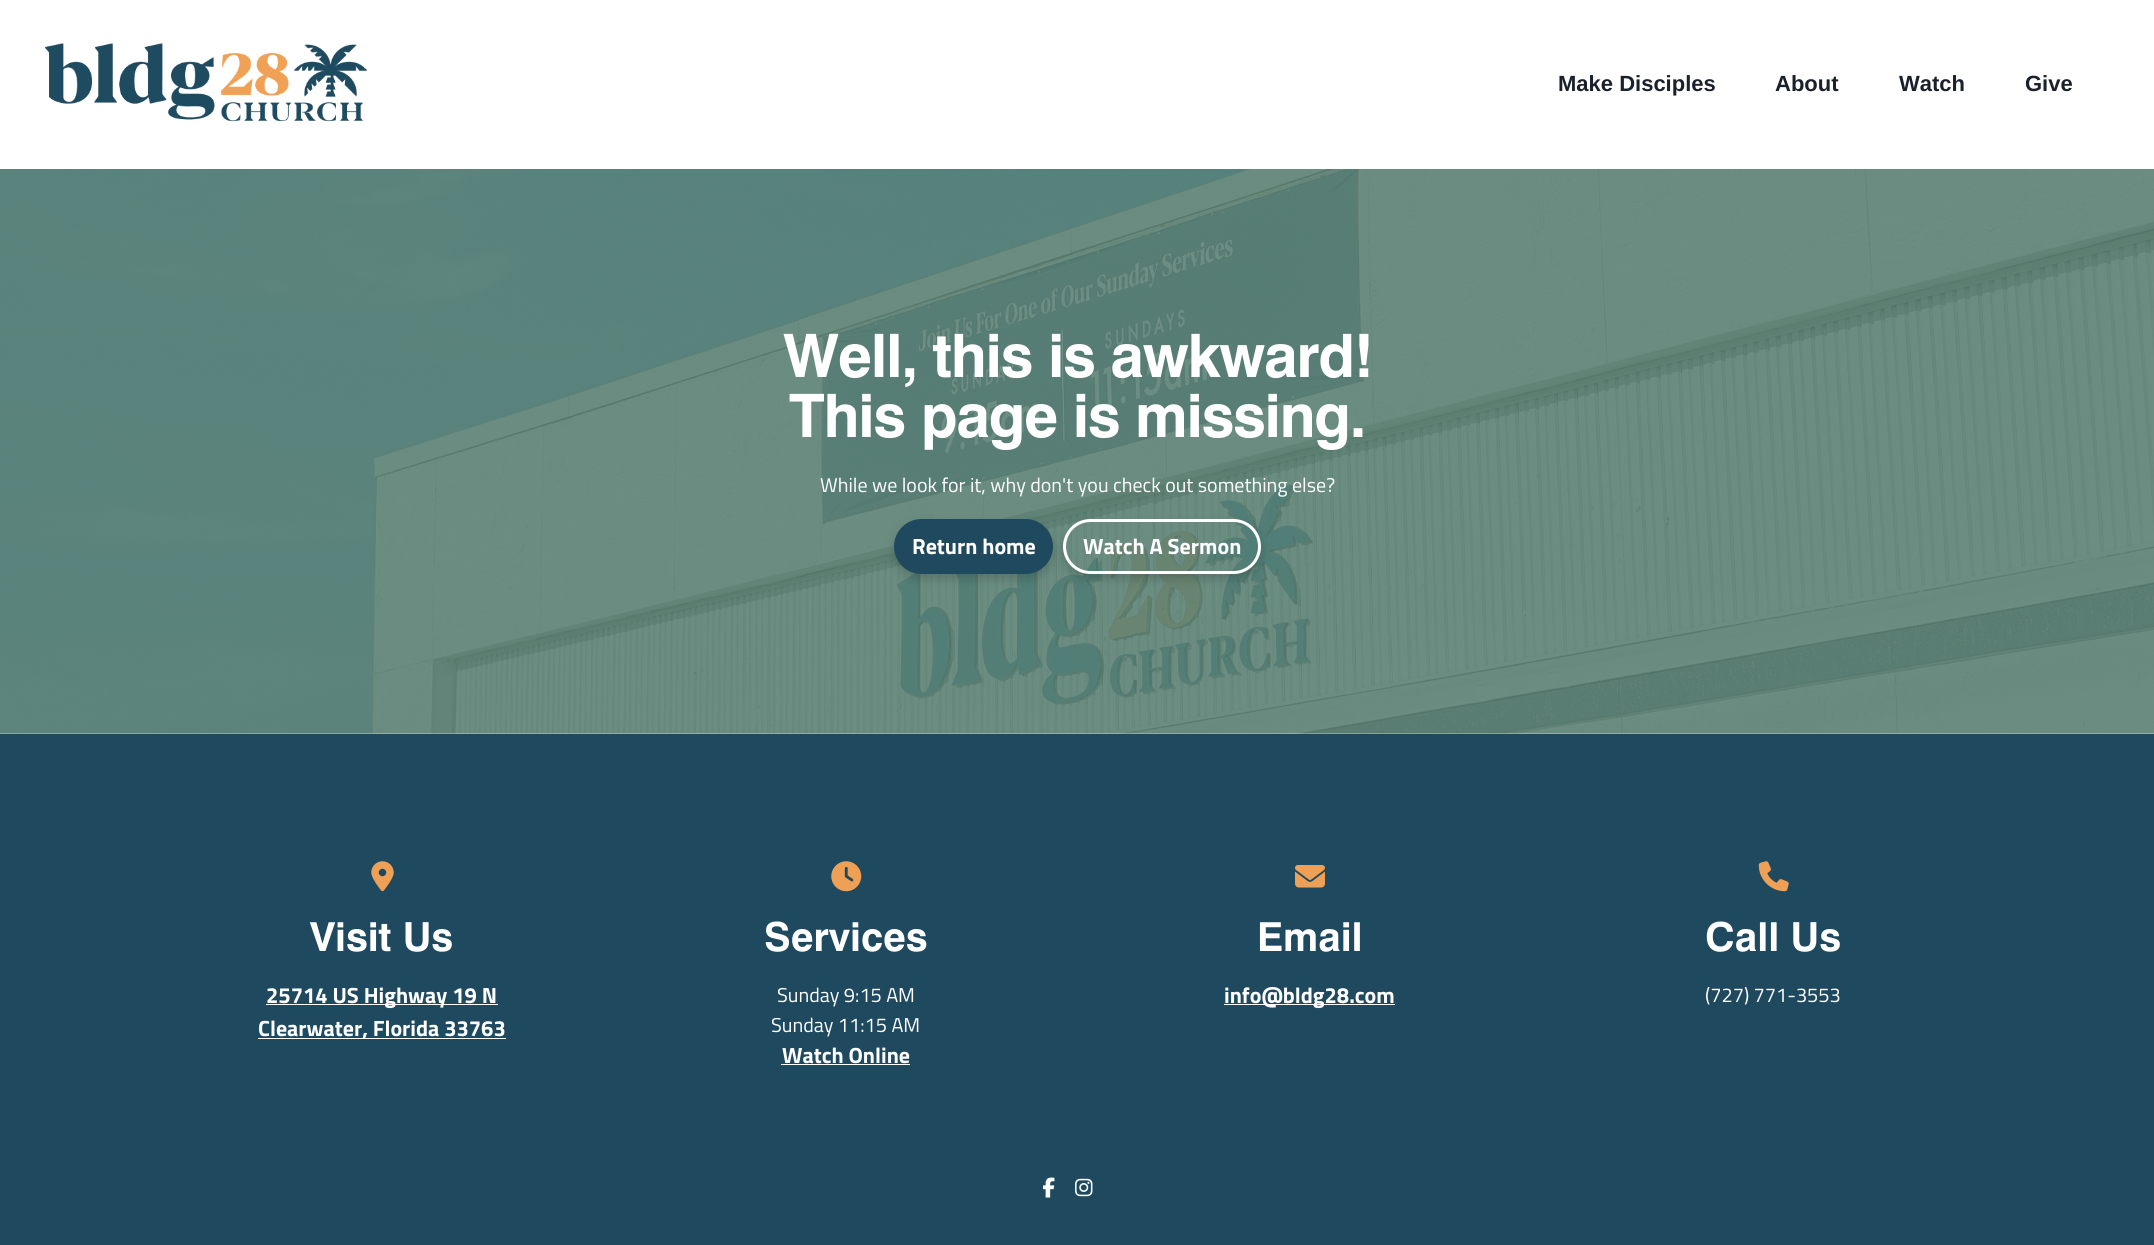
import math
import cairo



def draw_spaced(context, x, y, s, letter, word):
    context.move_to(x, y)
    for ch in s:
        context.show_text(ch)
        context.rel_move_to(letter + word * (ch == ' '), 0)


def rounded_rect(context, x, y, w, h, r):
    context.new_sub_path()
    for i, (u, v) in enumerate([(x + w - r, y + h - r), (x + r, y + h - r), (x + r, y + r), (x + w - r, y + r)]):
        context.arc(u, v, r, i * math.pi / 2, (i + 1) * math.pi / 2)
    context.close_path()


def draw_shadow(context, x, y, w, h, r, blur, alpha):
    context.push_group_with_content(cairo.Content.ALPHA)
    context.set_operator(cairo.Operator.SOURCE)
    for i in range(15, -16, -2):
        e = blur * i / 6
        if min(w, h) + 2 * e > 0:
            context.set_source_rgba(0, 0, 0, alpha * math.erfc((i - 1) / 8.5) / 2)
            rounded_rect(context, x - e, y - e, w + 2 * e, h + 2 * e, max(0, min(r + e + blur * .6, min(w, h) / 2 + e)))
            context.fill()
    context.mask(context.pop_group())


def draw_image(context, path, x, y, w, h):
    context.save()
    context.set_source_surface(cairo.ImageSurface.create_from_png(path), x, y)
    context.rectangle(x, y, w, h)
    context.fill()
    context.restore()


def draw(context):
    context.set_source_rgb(1, 1, 1)
    context.paint()
    draw_image(context, "images/1.png", 45, 43, 323, 79)
    draw_image(context, "images/2.png", 0, 169, 2154, 565)
    context.set_source_rgb(0, 0, 0)
    draw_shadow(context, 894, 524, 159, 55, 27.5, 5, 0.17)
    context.set_source_rgb(30 / 255, 73 / 255, 94 / 255)
    rounded_rect(context, 894, 519, 159, 55, 27.5)
    context.fill()
    context.save()
    context.set_fill_rule(cairo.FillRule.EVEN_ODD)
    context.new_path()
    context.move_to(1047, 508)
    context.line_to(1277, 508)
    context.line_to(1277, 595)
    context.line_to(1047, 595)
    context.close_path()
    context.move_to(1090.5, 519)
    context.line_to(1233.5, 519)
    context.curve_to(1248.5, 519, 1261, 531.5, 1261, 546.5)
    context.curve_to(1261, 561.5, 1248.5, 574, 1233.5, 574)
    context.line_to(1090.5, 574)
    context.curve_to(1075.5, 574, 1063, 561.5, 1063, 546.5)
    context.curve_to(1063, 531.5, 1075.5, 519, 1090.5, 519)
    context.close_path()
    context.clip()
    context.set_source_rgb(0, 0, 0)
    draw_shadow(context, 1063, 524, 198, 55, 27.5, 5, 0.17)
    context.restore()
    rounded_rect(context, 1064.5, 520.5, 195, 52, 26)
    context.set_source_rgb(1, 1, 1)
    context.set_line_width(3)
    context.stroke()
    context.set_source_rgb(30 / 255, 73 / 255, 94 / 255)
    context.rectangle(0, 734, 2154, 511)
    context.fill()
    draw_image(context, "images/3.png", 371, 861, 23, 31)
    context.set_source_rgb(1, 1, 1)
    context.rectangle(266, 1004, 232, 1)
    context.fill()
    context.rectangle(258, 1038, 248, 1)
    context.fill()
    draw_image(context, "images/4.png", 831, 861, 31, 31)
    context.rectangle(781, 1064, 129, 1)
    context.fill()
    draw_image(context, "images/5.png", 1295, 865, 30, 23)
    context.rectangle(1224, 1004, 171, 1)
    context.fill()
    draw_image(context, "images/6.png", 1758, 861, 31, 31)
    draw_image(context, "images/7.png", 1043, 1177, 12, 21)
    draw_image(context, "images/8.png", 1075, 1178, 18, 19)
    context.select_font_face("Liberation Sans", cairo.FontSlant.NORMAL, cairo.FontWeight.BOLD)
    context.set_font_size(22)
    context.set_source_rgb(26 / 255, 32 / 255, 44 / 255)
    context.move_to(1558, 91)
    context.show_text("Make Disciples")
    context.move_to(1775, 91)
    context.show_text("About")
    context.move_to(1899, 91)
    context.show_text("Watch")
    context.move_to(2025, 91)
    context.show_text("Give")
    context.select_font_face("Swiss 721", cairo.FontSlant.NORMAL, cairo.FontWeight.BOLD)
    context.set_font_size(60)
    context.set_source_rgb(1, 1, 1)
    draw_spaced(context, 783, 377, "Well, this is awkward!", -1.25, 0)
    draw_spaced(context, 789, 437, "This page is missing.", -1.25, 0)
    context.select_font_face("Titillium Web")
    context.set_font_size(20)
    context.move_to(820, 492)
    context.show_text("While we look for it, why don't you check out something else?")
    context.select_font_face("Titillium Web", cairo.FontSlant.NORMAL, cairo.FontWeight.BOLD)
    context.set_font_size(22)
    context.move_to(912, 554)
    context.show_text("Return home")
    context.move_to(1083, 554)
    context.show_text("Watch A Sermon")
    context.select_font_face("Swiss 721", cairo.FontSlant.NORMAL, cairo.FontWeight.BOLD)
    context.set_font_size(40)
    context.move_to(310, 951)
    context.show_text("Visit Us")
    context.select_font_face("Titillium Web", cairo.FontSlant.NORMAL, cairo.FontWeight.BOLD)
    context.set_font_size(22)
    context.move_to(266, 1003)
    context.show_text("25714 US Highway 19 N")
    context.move_to(258, 1036)
    context.show_text("Clearwater, Florida 33763")
    context.select_font_face("Swiss 721", cairo.FontSlant.NORMAL, cairo.FontWeight.BOLD)
    context.set_font_size(40)
    context.move_to(764, 951)
    context.show_text("Services")
    context.select_font_face("Titillium Web")
    context.set_font_size(20)
    context.move_to(777, 1002)
    context.show_text("Sunday 9:15 AM")
    context.move_to(771, 1032)
    context.show_text("Sunday 11:15 AM")
    context.select_font_face("Titillium Web", cairo.FontSlant.NORMAL, cairo.FontWeight.BOLD)
    context.set_font_size(22)
    context.move_to(782, 1063)
    context.show_text("Watch Online")
    context.select_font_face("Swiss 721", cairo.FontSlant.NORMAL, cairo.FontWeight.BOLD)
    context.set_font_size(40)
    context.move_to(1257, 951)
    context.show_text("Email")
    context.select_font_face("Titillium Web", cairo.FontSlant.NORMAL, cairo.FontWeight.BOLD)
    context.set_font_size(22)
    context.move_to(1224, 1003)
    context.show_text("info@bldg28.com")
    context.select_font_face("Swiss 721", cairo.FontSlant.NORMAL, cairo.FontWeight.BOLD)
    context.set_font_size(40)
    context.move_to(1705, 951)
    context.show_text("Call Us")
    context.select_font_face("Titillium Web")
    context.set_font_size(20)
    context.move_to(1705, 1002)
    context.show_text("(727) 771-3553")


surface = cairo.ImageSurface(cairo.Format.RGB24, 2154, 1245)
context = cairo.Context(surface)
options = cairo.FontOptions()
options.set_hint_metrics(cairo.HintMetrics.OFF)
options.set_hint_style(cairo.HintStyle.NONE)
context.set_font_options(options)
context.set_miter_limit(4)
draw(context)
surface.write_to_png("out.png")
